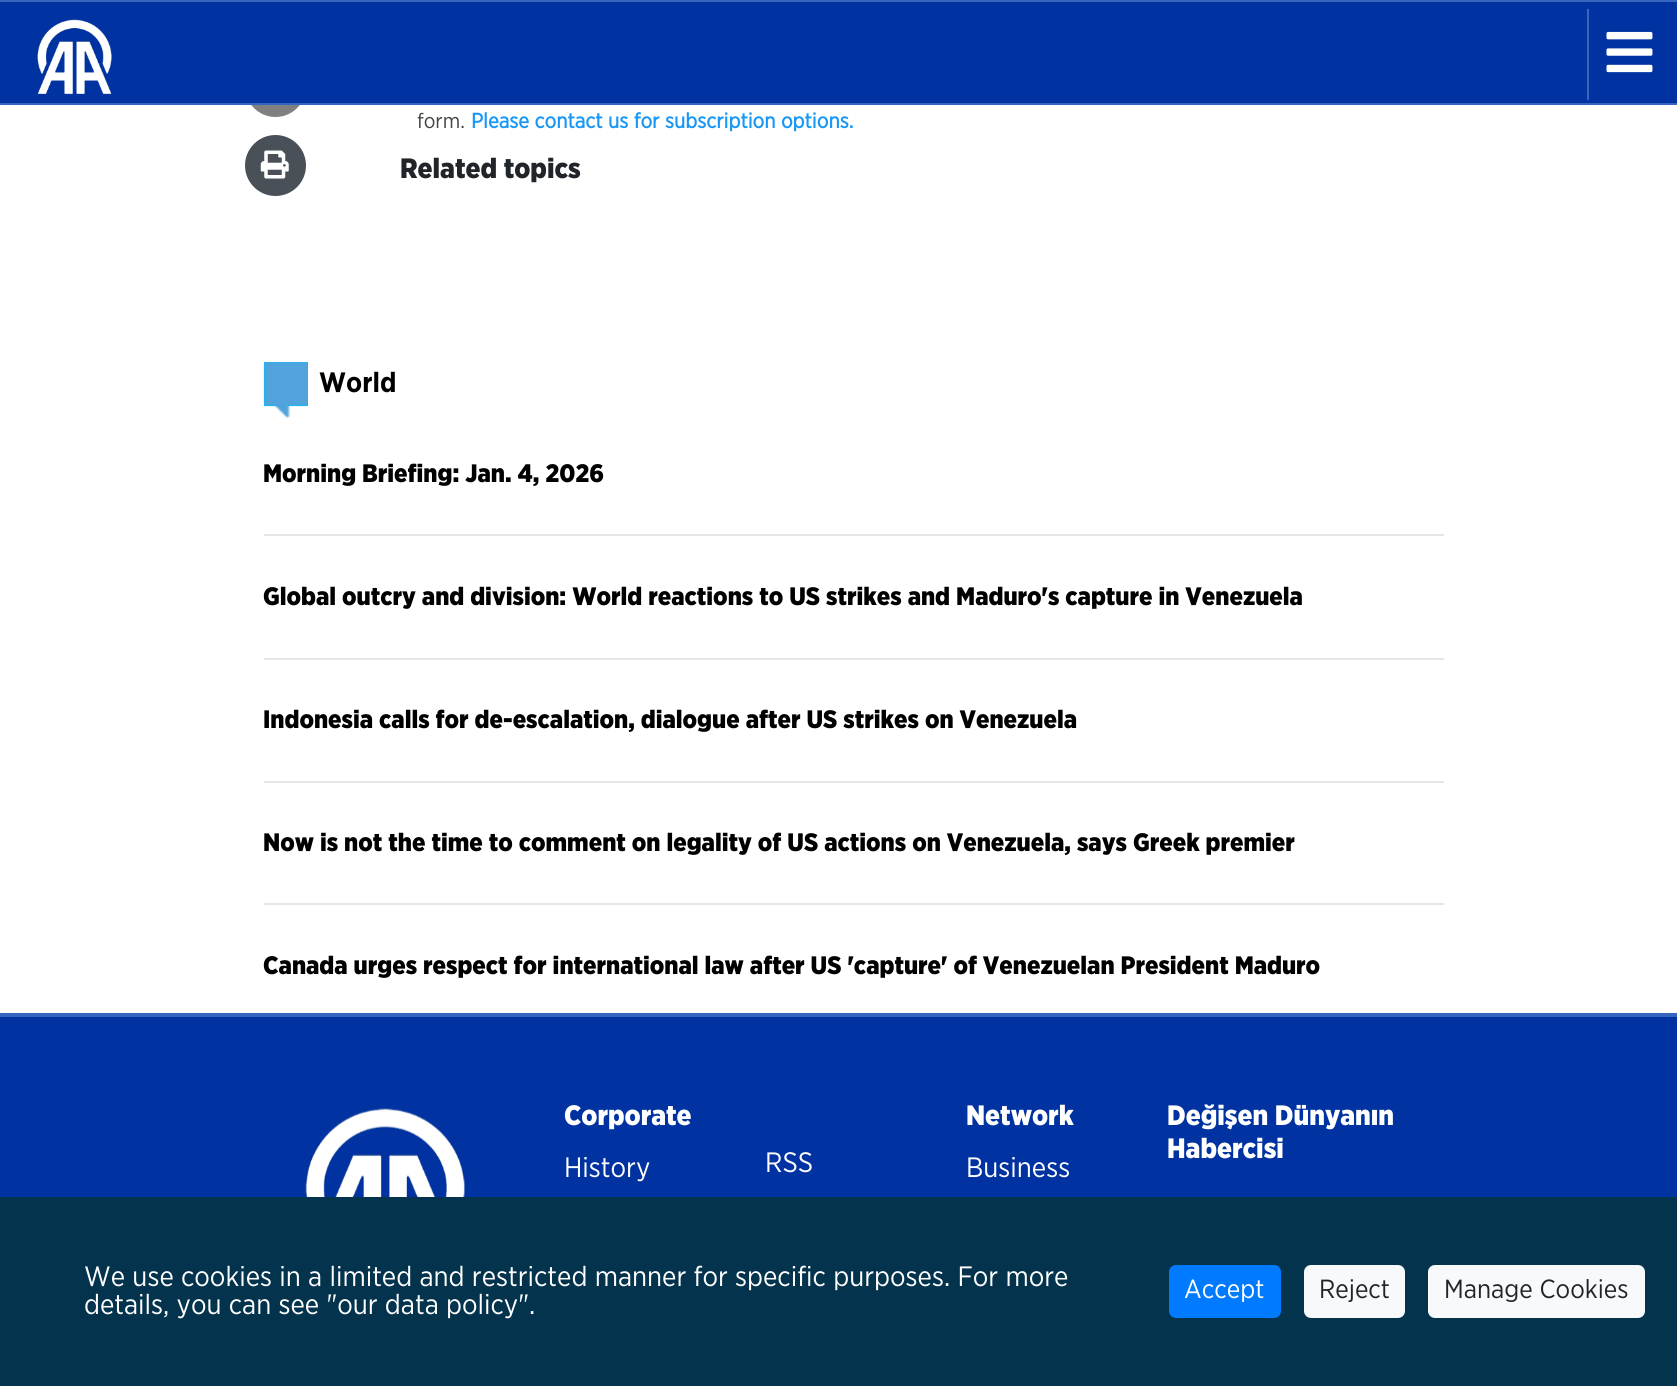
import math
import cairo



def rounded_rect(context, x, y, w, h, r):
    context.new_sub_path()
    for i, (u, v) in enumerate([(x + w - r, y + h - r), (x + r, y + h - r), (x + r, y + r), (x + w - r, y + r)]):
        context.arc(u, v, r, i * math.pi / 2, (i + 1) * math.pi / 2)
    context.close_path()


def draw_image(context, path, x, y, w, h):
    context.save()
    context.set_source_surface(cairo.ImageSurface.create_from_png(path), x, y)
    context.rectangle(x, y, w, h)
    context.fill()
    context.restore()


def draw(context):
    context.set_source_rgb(1, 1, 1)
    context.paint()
    context.set_source_rgb(128 / 255, 128 / 255, 128 / 255)
    context.arc(275.5, 86.5, 30.5, 0, 2 * math.pi)
    context.fill()
    context.set_source_rgb(0, 51 / 255, 161 / 255)
    context.rectangle(0, 2, 1677, 101)
    context.fill()
    context.set_source_rgb(53 / 255, 101 / 255, 188 / 255)
    context.rectangle(0, 0, 1677, 2)
    context.fill()
    context.rectangle(0, 103, 1677, 2)
    context.fill()
    draw_image(context, "images/1.png", 37, 19, 75, 75)
    context.rectangle(1587, 9, 2, 91)
    context.fill()
    draw_image(context, "images/2.png", 1606, 31, 47, 42)
    context.set_source_rgb(73 / 255, 80 / 255, 87 / 255)
    context.arc(275.5, 165.5, 30.5, 0, 2 * math.pi)
    context.fill()
    draw_image(context, "images/3.png", 260, 150, 29, 29)
    context.set_source_rgb(0, 191 / 255, 1)
    context.rectangle(264, 362, 44, 44)
    context.fill()
    draw_image(context, "images/4.png", 263, 362, 45, 57)
    context.set_source_rgb(230 / 255, 230 / 255, 230 / 255)
    context.rectangle(264, 534, 1180, 2)
    context.fill()
    context.rectangle(264, 658, 1180, 2)
    context.fill()
    context.rectangle(264, 781, 1180, 2)
    context.fill()
    context.rectangle(264, 903, 1180, 2)
    context.fill()
    context.set_source_rgb(53 / 255, 101 / 255, 188 / 255)
    context.rectangle(0, 1013, 1677, 4)
    context.fill()
    context.set_source_rgb(0, 51 / 255, 161 / 255)
    context.rectangle(0, 1017, 1677, 180)
    context.fill()
    draw_image(context, "images/5.png", 305, 1108, 160, 89)
    context.set_source_rgb(4 / 255, 51 / 255, 77 / 255)
    context.rectangle(0, 1197, 1677, 189)
    context.fill()
    context.set_source_rgb(0, 123 / 255, 1)
    rounded_rect(context, 1170, 1266, 110, 51, 6)
    context.fill_preserve()
    context.stroke()
    context.set_source_rgb(248 / 255, 249 / 255, 250 / 255)
    rounded_rect(context, 1305, 1266, 99, 51, 6)
    context.fill_preserve()
    context.stroke()
    rounded_rect(context, 1429, 1266, 215, 51, 6)
    context.fill_preserve()
    context.stroke()
    context.select_font_face("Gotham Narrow")
    context.set_font_size(21)
    context.set_source_rgb(68 / 255, 68 / 255, 68 / 255)
    context.move_to(417, 128)
    context.show_text("form.")
    context.select_font_face("Gotham Narrow", cairo.FontSlant.NORMAL, cairo.FontWeight.BOLD)
    context.set_source_rgb(24 / 255, 151 / 255, 247 / 255)
    context.move_to(471, 128)
    context.show_text("Please contact us for subscription options.")
    context.select_font_face("Gotham Narrow Black")
    context.set_font_size(28)
    context.set_source_rgb(33 / 255, 37 / 255, 41 / 255)
    context.move_to(400, 178)
    context.show_text("Related topics")
    context.select_font_face("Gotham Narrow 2", cairo.FontSlant.NORMAL, cairo.FontWeight.BOLD)
    context.set_source_rgb(0, 0, 0)
    context.move_to(319, 392)
    context.show_text("World")
    context.select_font_face("Gotham Narrow Black")
    context.set_font_size(25.2)
    context.move_to(263, 482)
    context.show_text("Morning Briefing: Jan. 4, 2026")
    context.move_to(263, 605)
    context.show_text("Global outcry and division: World reactions to US strikes and Maduro's capture in Venezuela")
    context.move_to(263, 728)
    context.show_text("Indonesia calls for de-escalation, dialogue after US strikes on Venezuela")
    context.move_to(263, 851)
    context.show_text("Now is not the time to comment on legality of US actions on Venezuela, says Greek premier")
    context.move_to(263, 974)
    context.show_text("Canada urges respect for international law after US 'capture' of Venezuelan President Maduro")
    context.set_font_size(28)
    context.set_source_rgb(1, 1, 1)
    context.move_to(564, 1125)
    context.show_text("Corporate")
    context.select_font_face("Gotham Narrow")
    context.move_to(564, 1177)
    context.show_text("History")
    context.move_to(765, 1172)
    context.show_text("RSS")
    context.select_font_face("Gotham Narrow Black")
    context.move_to(966, 1125)
    context.show_text("Network")
    context.select_font_face("Gotham Narrow")
    context.move_to(966, 1177)
    context.show_text("Business")
    context.select_font_face("Gotham Narrow Black")
    context.move_to(1167, 1125)
    context.show_text("Değişen Dünyanın")
    context.move_to(1167, 1158)
    context.show_text("Habercisi")
    context.select_font_face("Gotham Narrow")
    context.move_to(84, 1286)
    context.show_text("We use cookies in a limited and restricted manner for specific purposes. For more")
    context.move_to(84, 1314)
    context.show_text("details, you can see \"our data policy\".")
    context.set_font_size(26.25)
    context.move_to(1184, 1298)
    context.show_text("Accept")
    context.set_source_rgb(33 / 255, 37 / 255, 41 / 255)
    context.move_to(1319, 1298)
    context.show_text("Reject")
    context.move_to(1444, 1298)
    context.show_text("Manage Cookies")


surface = cairo.ImageSurface(cairo.Format.RGB24, 1677, 1386)
context = cairo.Context(surface)
options = cairo.FontOptions()
options.set_hint_metrics(cairo.HintMetrics.OFF)
options.set_hint_style(cairo.HintStyle.NONE)
context.set_font_options(options)
context.set_miter_limit(4)
draw(context)
surface.write_to_png("out.png")
